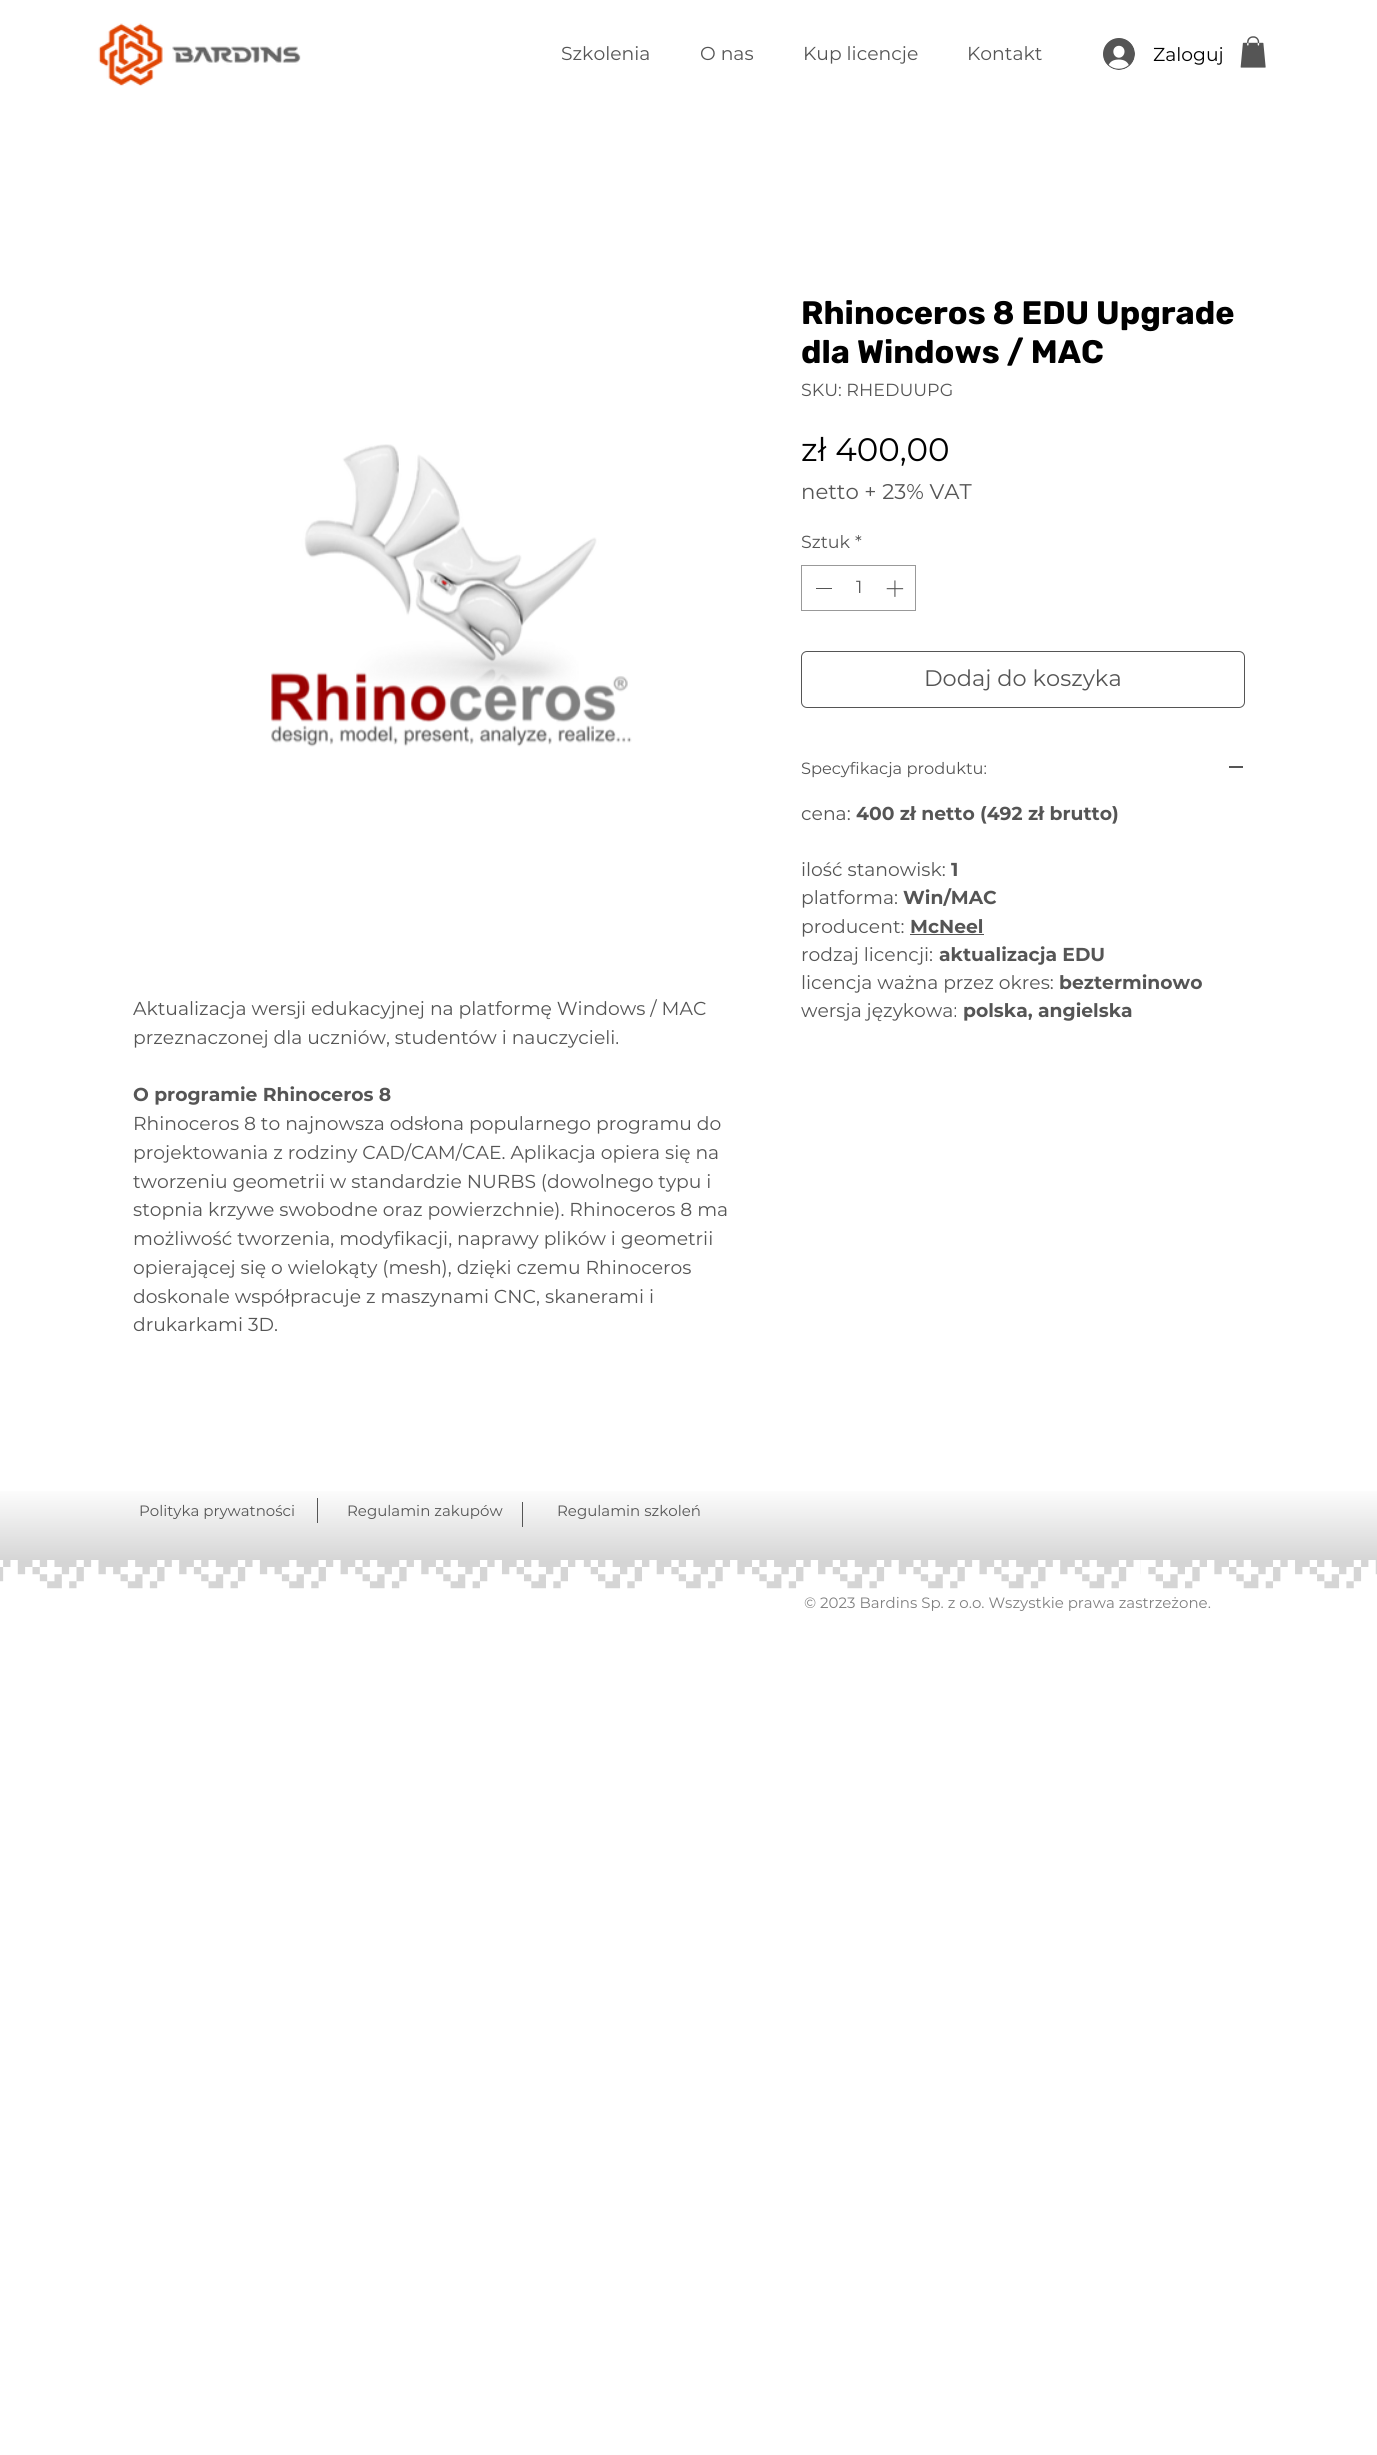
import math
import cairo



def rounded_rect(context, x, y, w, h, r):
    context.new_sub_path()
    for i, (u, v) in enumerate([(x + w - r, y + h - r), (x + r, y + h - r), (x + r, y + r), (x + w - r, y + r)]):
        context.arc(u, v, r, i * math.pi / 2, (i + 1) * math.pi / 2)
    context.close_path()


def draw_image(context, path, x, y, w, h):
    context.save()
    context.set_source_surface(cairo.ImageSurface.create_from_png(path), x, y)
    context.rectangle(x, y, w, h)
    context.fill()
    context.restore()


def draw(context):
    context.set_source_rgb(1, 1, 1)
    context.paint()
    draw_image(context, "images/1.png", 98, 23, 203, 63)
    draw_image(context, "images/2.png", 1103, 38, 32, 32)
    draw_image(context, "images/3.png", 1240, 36, 26, 32)
    context.rectangle(801.5, 565.5, 114, 45)
    context.set_source_rgb(153 / 255, 153 / 255, 153 / 255)
    context.set_line_width(1)
    context.stroke()
    context.set_source_rgb(85 / 255, 85 / 255, 85 / 255)
    context.rectangle(816, 588, 16, 1)
    context.fill()
    draw_image(context, "images/4.png", 886, 580, 18, 17)
    rounded_rect(context, 801.5, 651.5, 443, 56, 5.5)
    context.stroke()
    context.rectangle(1229, 766, 14, 2)
    context.fill()
    context.rectangle(910, 934, 74, 1)
    context.fill()
    draw_image(context, "images/5.png", 271, 444, 361, 303)
    gradient = cairo.LinearGradient(689, 1610, 689, 1486)
    gradient.add_color_stop_rgba(0.39, 213 / 255, 213 / 255, 213 / 255, 1)
    gradient.add_color_stop_rgba(1, 1, 1, 1, 1)
    context.set_source(gradient)
    context.rectangle(0, 1491, 1377, 98)
    context.fill()
    context.set_source_rgb(85 / 255, 85 / 255, 85 / 255)
    context.rectangle(317, 1498, 1, 25)
    context.fill()
    context.rectangle(522, 1502, 1, 25)
    context.fill()
    draw_image(context, "images/6.png", 0, 1560, 1377, 50)
    context.select_font_face("Montserrat")
    context.set_font_size(18.75)
    context.move_to(561, 60)
    context.show_text("Szkolenia")
    context.move_to(700, 60)
    context.show_text("O nas")
    context.move_to(803, 60)
    context.show_text("Kup licencje")
    context.move_to(967, 60)
    context.show_text("Kontakt")
    context.set_source_rgb(0, 0, 0)
    context.move_to(1153, 61)
    context.show_text("Zaloguj")
    context.select_font_face("Rubik", cairo.FontSlant.NORMAL, cairo.FontWeight.BOLD)
    context.set_font_size(32.5)
    context.move_to(801, 324)
    context.show_text("Rhinoceros 8 EDU Upgrade")
    context.move_to(801, 363)
    context.show_text("dla Windows / MAC")
    context.select_font_face("Montserrat")
    context.set_font_size(17.5)
    context.set_source_rgb(85 / 255, 85 / 255, 85 / 255)
    context.move_to(801, 396)
    context.show_text("SKU: RHEDUUPG")
    context.set_font_size(32.5)
    context.set_source_rgb(0, 0, 0)
    context.move_to(801, 461)
    context.show_text("zł 400,00")
    context.set_font_size(21.25)
    context.set_source_rgb(85 / 255, 85 / 255, 85 / 255)
    context.move_to(801, 499)
    context.show_text("netto + 23% VAT")
    context.set_font_size(17.5)
    context.move_to(801, 548)
    context.show_text("Sztuk")
    context.move_to(855, 548)
    context.show_text("*")
    context.move_to(856, 593)
    context.show_text("1")
    context.set_font_size(22.5)
    context.move_to(924, 686)
    context.show_text("Dodaj do koszyka")
    context.set_font_size(16.25)
    context.move_to(801, 774)
    context.show_text("Specyfikacja produktu:")
    context.set_font_size(18.75)
    context.move_to(801, 820)
    context.show_text("cena:")
    context.select_font_face("Montserrat", cairo.FontSlant.NORMAL, cairo.FontWeight.BOLD)
    context.move_to(856, 820)
    context.show_text("400 zł netto (492 zł brutto)")
    context.select_font_face("Montserrat")
    context.move_to(801, 876)
    context.show_text("ilość stanowisk:")
    context.select_font_face("Montserrat", cairo.FontSlant.NORMAL, cairo.FontWeight.BOLD)
    context.move_to(951, 876)
    context.show_text("1")
    context.select_font_face("Montserrat")
    context.move_to(801, 904)
    context.show_text("platforma:")
    context.select_font_face("Montserrat", cairo.FontSlant.NORMAL, cairo.FontWeight.BOLD)
    context.move_to(903, 904)
    context.show_text("Win/MAC")
    context.select_font_face("Montserrat")
    context.move_to(801, 933)
    context.show_text("producent:")
    context.select_font_face("Montserrat", cairo.FontSlant.NORMAL, cairo.FontWeight.BOLD)
    context.move_to(910, 933)
    context.show_text("McNeel")
    context.select_font_face("Montserrat")
    context.move_to(801, 961)
    context.show_text("rodzaj licencji:")
    context.select_font_face("Montserrat", cairo.FontSlant.NORMAL, cairo.FontWeight.BOLD)
    context.move_to(939, 961)
    context.show_text("aktualizacja EDU")
    context.select_font_face("Montserrat")
    context.move_to(801, 989)
    context.show_text("licencja ważna przez okres:")
    context.select_font_face("Montserrat", cairo.FontSlant.NORMAL, cairo.FontWeight.BOLD)
    context.move_to(1059, 989)
    context.show_text("bezterminowo")
    context.select_font_face("Montserrat")
    context.move_to(801, 1017)
    context.show_text("wersja językowa:")
    context.select_font_face("Montserrat", cairo.FontSlant.NORMAL, cairo.FontWeight.BOLD)
    context.move_to(963, 1017)
    context.show_text("polska, angielska")
    context.select_font_face("Montserrat")
    context.move_to(133, 1015)
    context.show_text("Aktualizacja wersji edukacyjnej na platformę Windows / MAC")
    context.move_to(133, 1044)
    context.show_text("przeznaczonej dla uczniów, studentów i nauczycieli.")
    context.select_font_face("Montserrat", cairo.FontSlant.NORMAL, cairo.FontWeight.BOLD)
    context.move_to(133, 1101)
    context.show_text("O programie Rhinoceros 8")
    context.select_font_face("Montserrat")
    context.move_to(133, 1130)
    context.show_text("Rhinoceros 8 to najnowsza odsłona popularnego programu do")
    context.move_to(133, 1159)
    context.show_text("projektowania z rodziny CAD/CAM/CAE. Aplikacja opiera się na")
    context.move_to(133, 1188)
    context.show_text("tworzeniu geometrii w standardzie NURBS (dowolnego typu i")
    context.move_to(133, 1216)
    context.show_text("stopnia krzywe swobodne oraz powierzchnie). Rhinoceros 8 ma")
    context.move_to(133, 1245)
    context.show_text("możliwość tworzenia, modyfikacji, naprawy plików i geometrii")
    context.move_to(133, 1274)
    context.show_text("opierającej się o wielokąty (mesh), dzięki czemu Rhinoceros")
    context.move_to(133, 1303)
    context.show_text("doskonale współpracuje z maszynami CNC, skanerami i")
    context.move_to(133, 1331)
    context.show_text("drukarkami 3D.")
    context.set_font_size(15)
    context.move_to(139, 1516)
    context.show_text("Polityka prywatności")
    context.move_to(347, 1516)
    context.show_text("Regulamin zakupów")
    context.move_to(557, 1516)
    context.show_text("Regulamin szkoleń")
    context.set_source_rgb(128 / 255, 128 / 255, 128 / 255)
    context.move_to(804, 1608)
    context.show_text("© 2023 Bardins Sp. z o.o. Wszystkie prawa zastrzeżone.")


surface = cairo.ImageSurface(cairo.Format.RGB24, 1377, 2455)
context = cairo.Context(surface)
options = cairo.FontOptions()
options.set_hint_metrics(cairo.HintMetrics.OFF)
options.set_hint_style(cairo.HintStyle.NONE)
context.set_font_options(options)
context.set_miter_limit(4)
draw(context)
surface.write_to_png("out.png")
